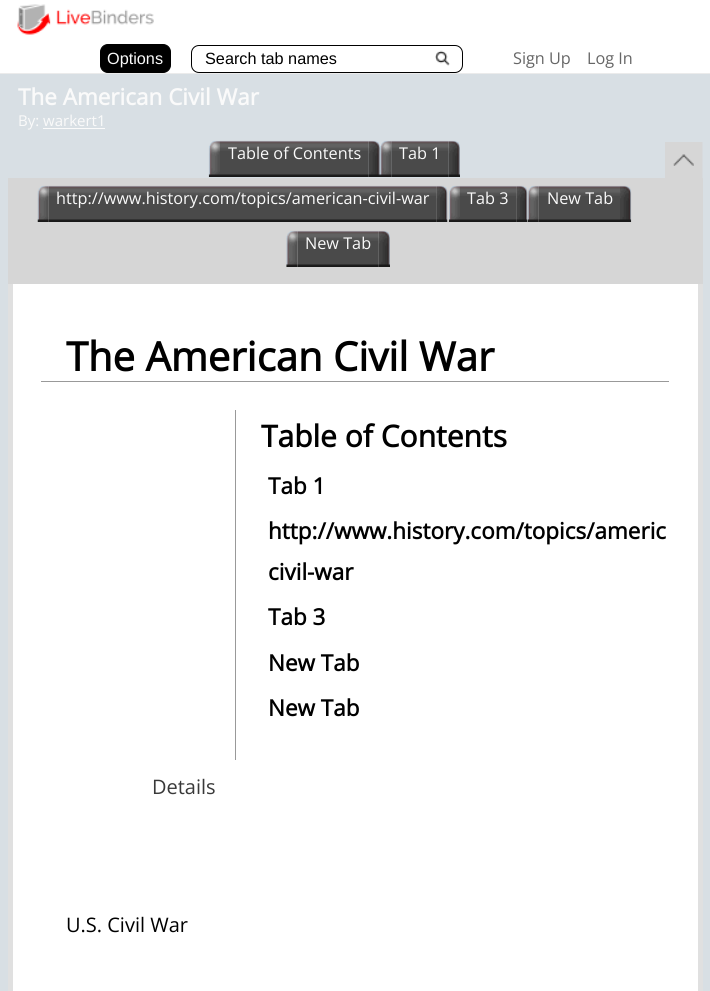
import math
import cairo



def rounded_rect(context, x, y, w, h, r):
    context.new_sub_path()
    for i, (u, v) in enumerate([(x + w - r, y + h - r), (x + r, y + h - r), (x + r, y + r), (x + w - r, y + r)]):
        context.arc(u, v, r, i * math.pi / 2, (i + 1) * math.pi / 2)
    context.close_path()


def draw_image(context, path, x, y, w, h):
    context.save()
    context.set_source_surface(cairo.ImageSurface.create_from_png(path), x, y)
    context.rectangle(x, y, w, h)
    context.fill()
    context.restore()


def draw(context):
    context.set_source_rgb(216 / 255, 223 / 255, 228 / 255)
    context.paint()
    context.set_source_rgb(1, 1, 1)
    context.rectangle(0, 0, 710, 73)
    context.fill()
    context.set_source_rgb(235 / 255, 235 / 255, 235 / 255)
    context.rectangle(0, 73, 710, 1)
    context.fill()
    draw_image(context, "images/1.png", 17, 4, 137, 31)
    context.set_source_rgb(0, 0, 0)
    rounded_rect(context, 100.5, 44.5, 70, 28, 7.5)
    context.fill_preserve()
    context.set_line_width(1)
    context.stroke()
    draw_image(context, "images/2.png", 435, 50, 15, 16)
    rounded_rect(context, 191.5, 45.5, 271, 27, 7.5)
    context.stroke()
    context.set_source_rgb(250 / 255, 250 / 255, 250 / 255)
    context.rectangle(43, 128, 62, 1)
    context.fill()
    context.set_source_rgb(214 / 255, 214 / 255, 214 / 255)
    context.rectangle(8, 178, 695, 106)
    context.fill()
    draw_image(context, "images/3.png", 208, 140, 12, 37)
    draw_image(context, "images/4.png", 220, 140, 149, 37)
    draw_image(context, "images/5.png", 368, 140, 12, 37)
    draw_image(context, "images/6.png", 380, 140, 12, 37)
    draw_image(context, "images/7.png", 391, 140, 58, 37)
    draw_image(context, "images/8.png", 448, 140, 12, 37)
    draw_image(context, "images/9.png", 37, 185, 12, 37)
    draw_image(context, "images/10.png", 48, 185, 389, 37)
    draw_image(context, "images/11.png", 436, 185, 12, 37)
    draw_image(context, "images/12.png", 448, 185, 12, 37)
    draw_image(context, "images/13.png", 460, 185, 57, 37)
    draw_image(context, "images/11.png", 516, 185, 12, 37)
    draw_image(context, "images/14.png", 527, 185, 12, 37)
    draw_image(context, "images/15.png", 538, 185, 82, 37)
    draw_image(context, "images/16.png", 620, 185, 12, 37)
    draw_image(context, "images/17.png", 286, 230, 12, 37)
    draw_image(context, "images/18.png", 297, 230, 82, 37)
    draw_image(context, "images/19.png", 378, 230, 12, 37)
    draw_image(context, "images/20.png", 665, 142, 38, 36)
    context.set_source_rgb(1, 1, 1)
    context.rectangle(13, 284, 685, 707)
    context.fill()
    context.set_source_rgb(224 / 255, 224 / 255, 224 / 255)
    context.rectangle(698, 284, 5, 707)
    context.fill()
    context.rectangle(8, 284, 5, 707)
    context.fill()
    context.set_source_rgb(153 / 255, 153 / 255, 153 / 255)
    context.rectangle(41, 381, 628, 1)
    context.fill()
    context.rectangle(235, 410, 1, 350)
    context.fill()
    context.select_font_face("Liberation Sans")
    context.set_font_size(16.25)
    context.set_source_rgb(250 / 255, 250 / 255, 250 / 255)
    context.move_to(107, 64)
    context.show_text("Options")
    context.set_source_rgb(0, 0, 0)
    context.move_to(205, 64)
    context.show_text("Search tab names")
    context.select_font_face("Open Sans")
    context.set_source_rgb(102 / 255, 102 / 255, 102 / 255)
    context.move_to(513, 64)
    context.show_text("Sign Up")
    context.move_to(587, 64)
    context.show_text("Log In")
    context.select_font_face("Open Sans", cairo.FontSlant.NORMAL, cairo.FontWeight.BOLD)
    context.set_font_size(22.5)
    context.set_source_rgb(250 / 255, 250 / 255, 250 / 255)
    context.move_to(18, 105)
    context.show_text("The American Civil War")
    context.select_font_face("Open Sans")
    context.set_font_size(15)
    context.move_to(18, 126)
    context.show_text("By: warkert1")
    context.set_font_size(16.25)
    context.move_to(228, 159)
    context.show_text("Table of Contents")
    context.move_to(399, 159)
    context.show_text("Tab 1")
    context.move_to(56, 204)
    context.show_text("http://www.history.com/topics/american-civil-war")
    context.move_to(467, 204)
    context.show_text("Tab 3")
    context.move_to(547, 204)
    context.show_text("New Tab")
    context.move_to(305, 249)
    context.show_text("New Tab")
    context.select_font_face("Open Sans", cairo.FontSlant.NORMAL, cairo.FontWeight.BOLD)
    context.set_font_size(40)
    context.set_source_rgb(0, 0, 0)
    context.move_to(66, 371)
    context.show_text("The American Civil War")
    context.set_font_size(30)
    context.move_to(261, 447)
    context.show_text("Table of Contents")
    context.set_font_size(22.5)
    context.move_to(268, 494)
    context.show_text("Tab 1")
    context.move_to(268, 539)
    context.show_text("http://www.history.com/topics/americ")
    context.move_to(268, 580)
    context.show_text("civil-war")
    context.move_to(268, 625)
    context.show_text("Tab 3")
    context.move_to(268, 671)
    context.show_text("New Tab")
    context.move_to(268, 716)
    context.show_text("New Tab")
    context.select_font_face("Open Sans")
    context.set_font_size(20)
    context.set_source_rgb(57 / 255, 57 / 255, 57 / 255)
    context.move_to(152, 794)
    context.show_text("Details")
    context.set_source_rgb(0, 0, 0)
    context.move_to(66, 932)
    context.show_text("U.S. Civil War")


surface = cairo.ImageSurface(cairo.Format.RGB24, 710, 991)
context = cairo.Context(surface)
options = cairo.FontOptions()
options.set_hint_metrics(cairo.HintMetrics.OFF)
options.set_hint_style(cairo.HintStyle.NONE)
context.set_font_options(options)
context.set_miter_limit(4)
draw(context)
surface.write_to_png("out.png")
